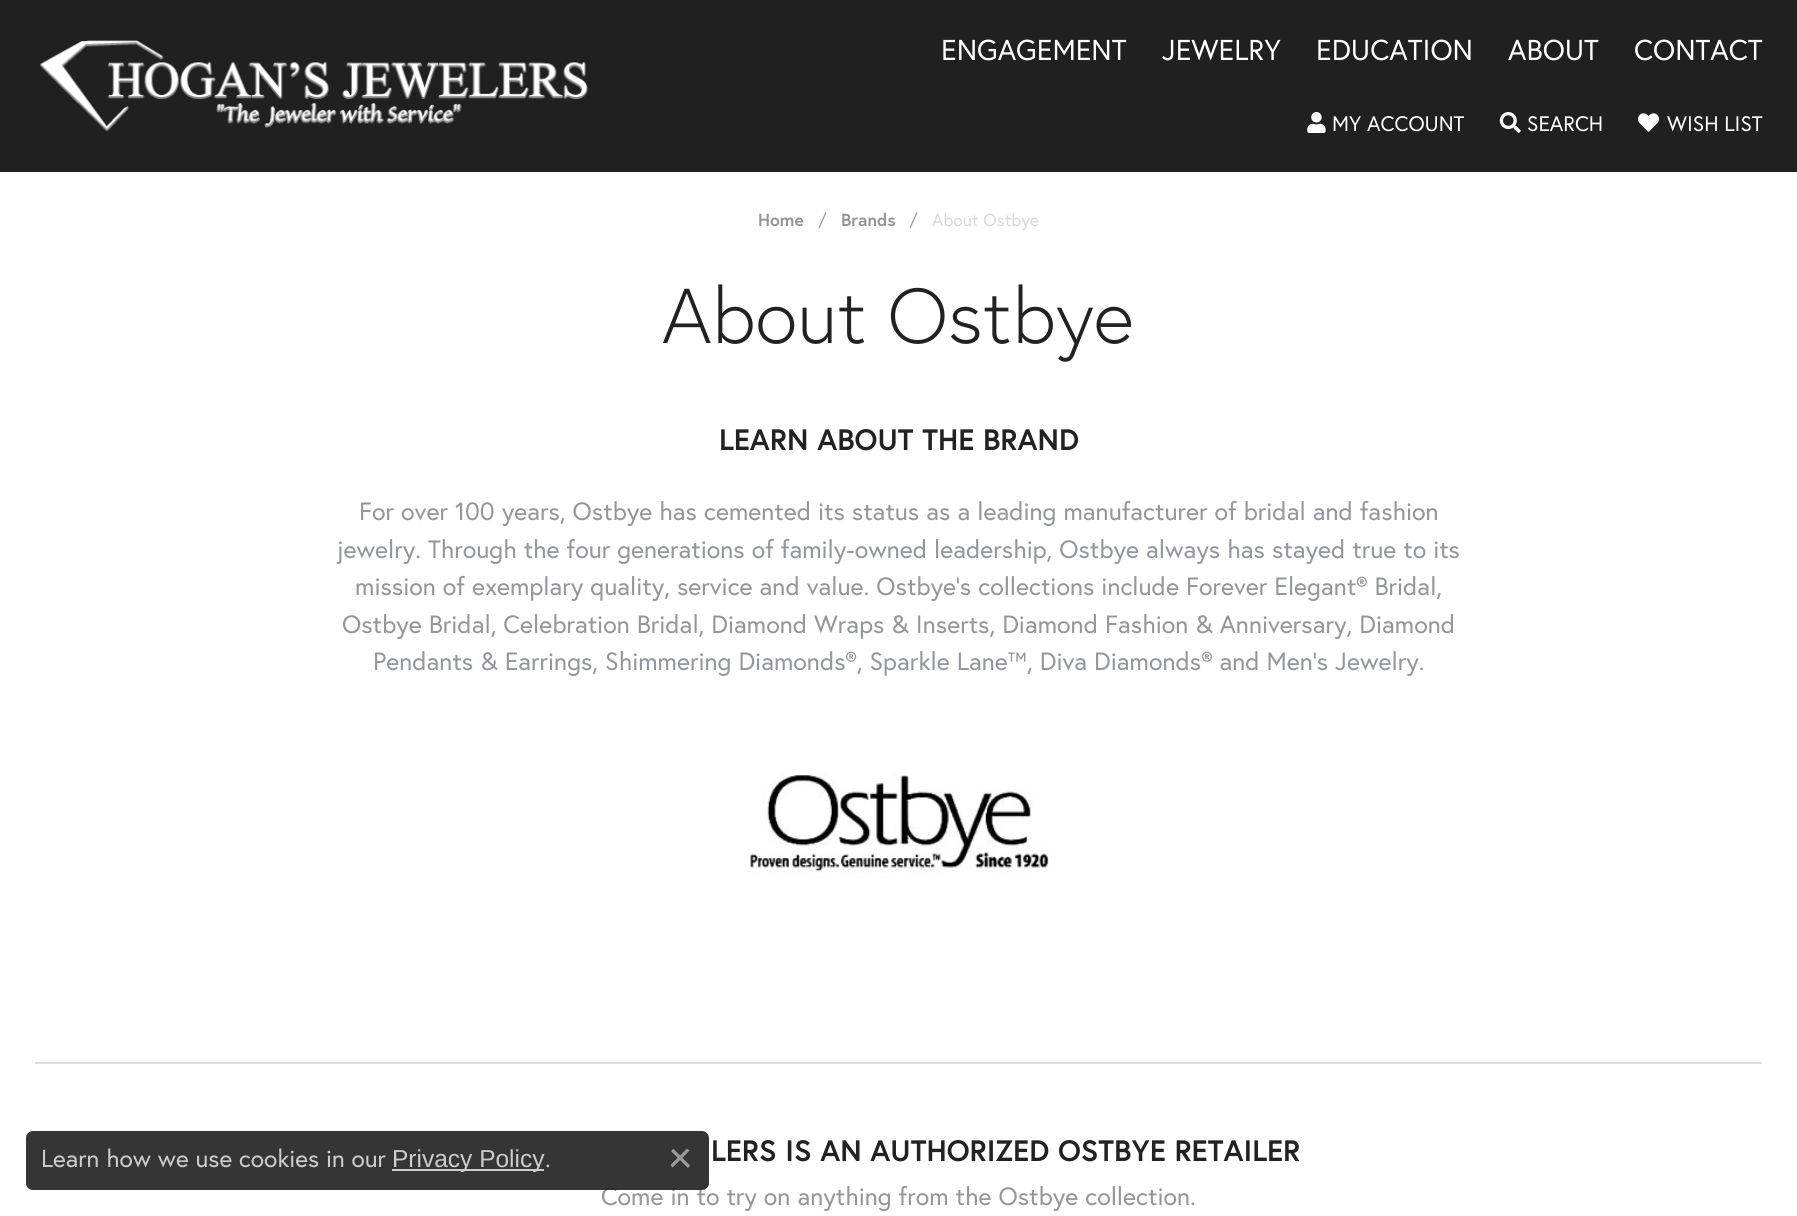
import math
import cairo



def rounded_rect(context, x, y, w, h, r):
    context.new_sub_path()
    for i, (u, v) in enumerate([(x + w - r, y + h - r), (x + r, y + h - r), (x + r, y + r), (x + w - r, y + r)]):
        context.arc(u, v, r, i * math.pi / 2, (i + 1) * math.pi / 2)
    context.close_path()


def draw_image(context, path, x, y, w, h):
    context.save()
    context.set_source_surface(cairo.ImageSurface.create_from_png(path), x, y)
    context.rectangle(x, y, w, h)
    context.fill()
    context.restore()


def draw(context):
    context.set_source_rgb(1, 1, 1)
    context.paint()
    context.set_source_rgb(33 / 255, 32 / 255, 32 / 255)
    context.rectangle(0, 0, 1797, 172)
    context.fill()
    draw_image(context, "images/1.png", 40, 40, 548, 92)
    draw_image(context, "images/2.png", 1307, 112, 19, 21)
    draw_image(context, "images/3.png", 1499, 112, 22, 21)
    draw_image(context, "images/4.png", 1638, 113, 21, 19)
    draw_image(context, "images/6.png", 746, 772, 303, 101)
    context.set_source_rgb(221 / 255, 220 / 255, 222 / 255)
    context.rectangle(35, 1062, 1727, 2)
    context.fill()
    context.select_font_face("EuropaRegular")
    context.set_font_size(28.75)
    context.set_source_rgb(1, 1, 1)
    context.move_to(941, 60)
    context.show_text("ENGAGEMENT")
    context.move_to(1162, 60)
    context.show_text("JEWELRY")
    context.move_to(1316, 60)
    context.show_text("EDUCATION")
    context.move_to(1508, 60)
    context.show_text("ABOUT")
    context.move_to(1634, 60)
    context.show_text("CONTACT")
    context.set_font_size(21)
    context.move_to(1332, 131)
    context.show_text("MY ACCOUNT")
    context.move_to(1527, 131)
    context.show_text("SEARCH")
    context.move_to(1667, 131)
    context.show_text("WISH LIST")
    context.select_font_face("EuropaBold", cairo.FontSlant.NORMAL, cairo.FontWeight.BOLD)
    context.set_font_size(17.5)
    context.set_source_rgb(147 / 255, 150 / 255, 159 / 255)
    context.move_to(758, 226)
    context.show_text("Home")
    context.select_font_face("EuropaRegular")
    context.set_source_rgb(156 / 255, 154 / 255, 162 / 255)
    context.move_to(818, 226)
    context.show_text("/")
    context.select_font_face("EuropaBold", cairo.FontSlant.NORMAL, cairo.FontWeight.BOLD)
    context.set_source_rgb(147 / 255, 150 / 255, 159 / 255)
    context.move_to(841, 226)
    context.show_text("Brands")
    context.select_font_face("EuropaRegular")
    context.set_source_rgb(156 / 255, 154 / 255, 162 / 255)
    context.move_to(909, 226)
    context.show_text("/")
    context.set_source_rgb(215 / 255, 216 / 255, 219 / 255)
    context.move_to(932, 226)
    context.show_text("About Ostbye")
    context.select_font_face("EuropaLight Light")
    context.set_font_size(77.5)
    context.set_source_rgb(34 / 255, 34 / 255, 34 / 255)
    context.move_to(662, 343)
    context.show_text("About Ostbye")
    context.select_font_face("EuropaBold", cairo.FontSlant.NORMAL, cairo.FontWeight.BOLD)
    context.set_font_size(29.5)
    context.move_to(719, 450)
    context.show_text("LEARN ABOUT THE BRAND")
    context.select_font_face("EuropaRegular")
    context.set_font_size(25)
    context.set_source_rgb(147 / 255, 150 / 255, 159 / 255)
    context.move_to(359, 520)
    context.show_text("For over 100 years, Ostbye has cemented its status as a leading manufacturer of bridal and fashion")
    context.move_to(337, 558)
    context.show_text("jewelry. Through the four generations of family-owned leadership, Ostbye always has stayed true to its")
    context.move_to(355, 595)
    context.show_text("mission of exemplary quality, service and value. Ostbye's collections include Forever Elegant® Bridal,")
    context.move_to(342, 633)
    context.show_text("Ostbye Bridal, Celebration Bridal, Diamond Wraps & Inserts, Diamond Fashion & Anniversary, Diamond")
    context.move_to(373, 670)
    context.show_text("Pendants & Earrings, Shimmering Diamonds®, Sparkle Lane™, Diva Diamonds® and Men's Jewelry.")
    context.select_font_face("EuropaBold", cairo.FontSlant.NORMAL, cairo.FontWeight.BOLD)
    context.set_font_size(29.5)
    context.set_source_rgb(34 / 255, 34 / 255, 34 / 255)
    context.move_to(711, 1161)
    context.show_text("LERS IS AN AUTHORIZED OSTBYE RETAILER")
    context.select_font_face("EuropaRegular")
    context.set_font_size(25)
    context.set_source_rgb(147 / 255, 150 / 255, 159 / 255)
    context.move_to(601, 1205)
    context.show_text("Come in to try on anything from the Ostbye collection.")
    context.set_source_rgba(33 / 255, 32 / 255, 32 / 255, 0.9)
    rounded_rect(context, 26, 1131, 683, 59, 7)
    context.fill()
    draw_image(context, "images/5.png", 670, 1148, 20, 20)
    context.set_font_size(24.5)
    context.set_source_rgb(204 / 255, 204 / 255, 204 / 255)
    context.move_to(545, 1167)
    context.show_text(".")
    context.rectangle(392, 1169, 152, 2)
    context.fill()
    context.select_font_face("Liberation Sans")
    context.move_to(392, 1167)
    context.show_text("Privacy Policy")
    context.select_font_face("EuropaRegular")
    context.move_to(41, 1167)
    context.show_text("Learn how we use cookies in our")


surface = cairo.ImageSurface(cairo.Format.RGB24, 1797, 1216)
context = cairo.Context(surface)
options = cairo.FontOptions()
options.set_hint_metrics(cairo.HintMetrics.OFF)
options.set_hint_style(cairo.HintStyle.NONE)
context.set_font_options(options)
context.set_miter_limit(4)
draw(context)
surface.write_to_png("out.png")
